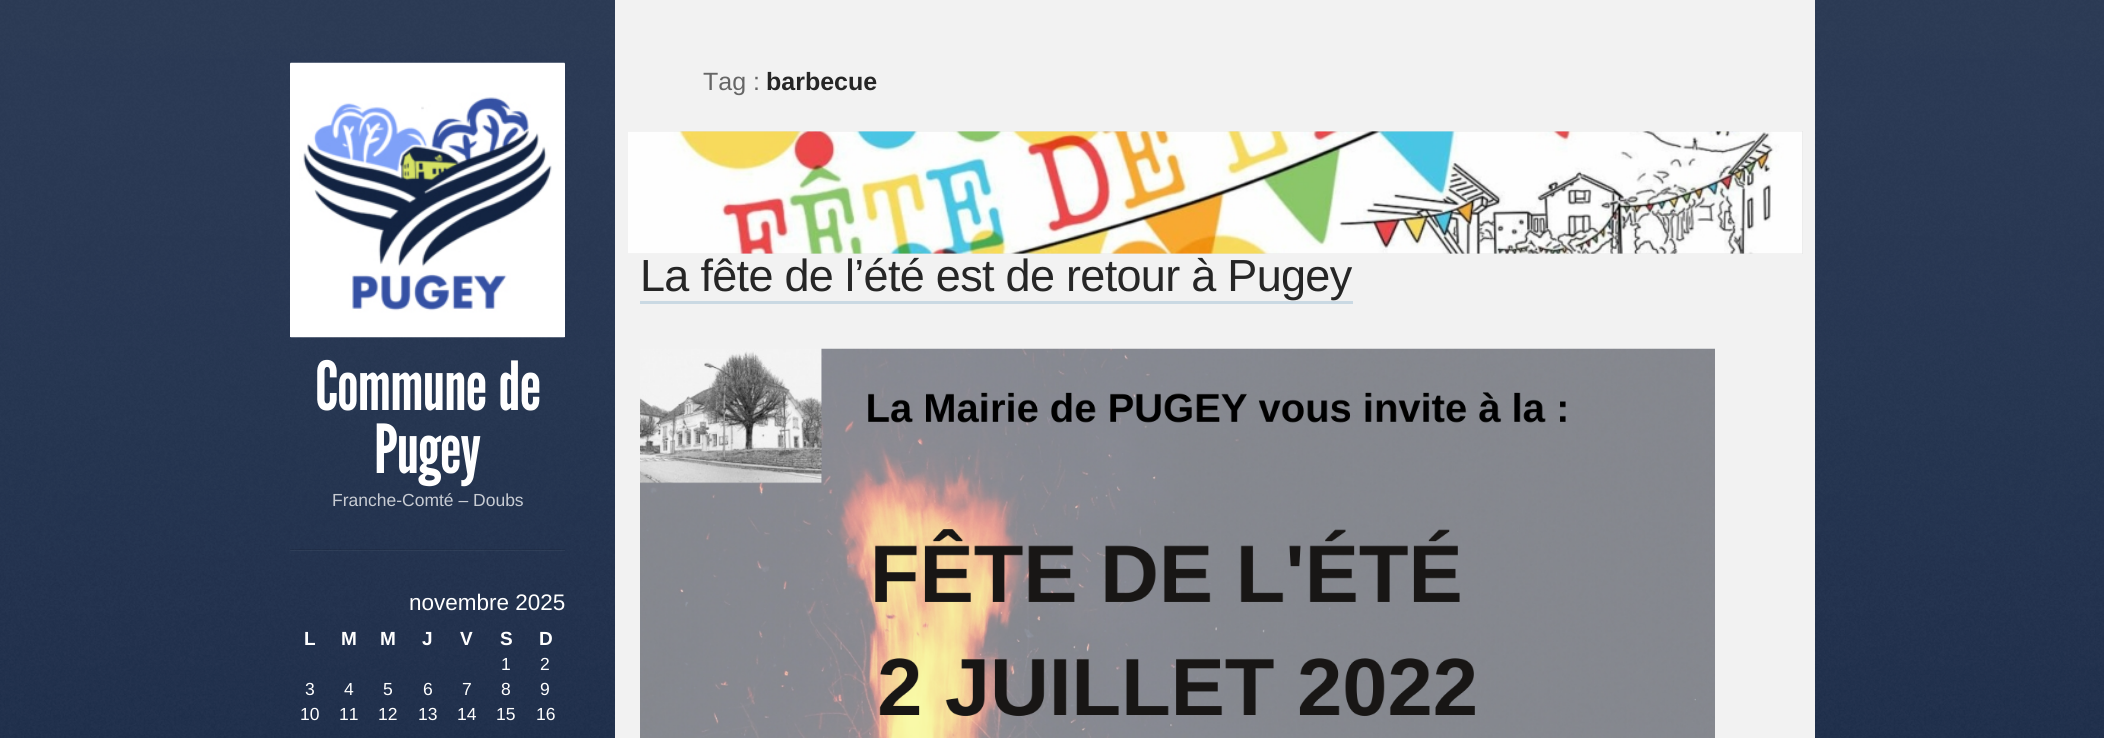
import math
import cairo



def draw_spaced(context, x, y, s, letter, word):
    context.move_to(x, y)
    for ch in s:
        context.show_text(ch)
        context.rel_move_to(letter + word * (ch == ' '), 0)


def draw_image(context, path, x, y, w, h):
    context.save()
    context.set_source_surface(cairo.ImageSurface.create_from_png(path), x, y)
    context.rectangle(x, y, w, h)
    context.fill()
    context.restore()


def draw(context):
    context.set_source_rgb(19 / 255, 36 / 255, 66 / 255)
    context.paint()
    draw_image(context, "images/1.png", 0, 0, 2104, 738)
    context.set_source_rgb(242 / 255, 242 / 255, 242 / 255)
    context.rectangle(615, 0, 1200, 738)
    context.fill()
    context.set_source_rgb(229 / 255, 229 / 255, 229 / 255)
    context.rectangle(628, 131, 1175, 123)
    context.fill()
    draw_image(context, "images/2.png", 628, 131, 1175, 123)
    context.set_source_rgb(202 / 255, 217 / 255, 227 / 255)
    context.rectangle(640, 301, 713, 3)
    context.fill()
    draw_image(context, "images/3.png", 640, 348, 1075, 390)
    context.set_source_rgba(1, 1, 1, 0.05)
    context.rectangle(290, 550, 275, 1)
    context.fill()
    context.set_source_rgba(0, 0, 0, 0.1)
    context.rectangle(290, 549, 275, 1)
    context.fill()
    draw_image(context, "images/4.png", 290, 62, 275, 276)
    context.select_font_face("Liberation Sans")
    context.set_font_size(25)
    context.set_source_rgb(102 / 255, 102 / 255, 102 / 255)
    context.move_to(703, 90)
    context.show_text("Tag :")
    context.select_font_face("Liberation Sans", cairo.FontSlant.NORMAL, cairo.FontWeight.BOLD)
    context.set_source_rgb(38 / 255, 38 / 255, 38 / 255)
    context.move_to(766, 90)
    context.show_text("barbecue")
    context.select_font_face("Liberation Sans")
    context.set_font_size(45)
    draw_spaced(context, 640, 291, "La fête de l’été est de retour à Pugey", -0.7, 0)
    context.select_font_face("League Gothic")
    context.set_font_size(67.5)
    context.set_source_rgb(1, 1, 1)
    draw_spaced(context, 315, 410, "Commune de", -1.25, 0)
    draw_spaced(context, 374, 473, "Pugey", -1.25, 0)
    context.select_font_face("Liberation Sans")
    context.set_font_size(17.5)
    context.set_source_rgb(200 / 255, 204 / 255, 211 / 255)
    context.move_to(332, 506)
    context.show_text("Franche-Comté – Doubs")
    context.set_font_size(22.5)
    context.set_source_rgb(1, 1, 1)
    context.move_to(409, 610)
    context.show_text("novembre 2025")
    context.select_font_face("Liberation Sans", cairo.FontSlant.NORMAL, cairo.FontWeight.BOLD)
    context.set_font_size(19)
    context.move_to(304, 645)
    context.show_text("L")
    context.move_to(341, 645)
    context.show_text("M")
    context.move_to(380, 645)
    context.show_text("M")
    context.move_to(422, 645)
    context.show_text("J")
    context.move_to(460, 645)
    context.show_text("V")
    context.move_to(500, 645)
    context.show_text("S")
    context.move_to(539, 645)
    context.show_text("D")
    context.select_font_face("Liberation Sans")
    context.set_font_size(17.5)
    context.move_to(501, 670)
    context.show_text("1")
    context.move_to(540, 670)
    context.show_text("2")
    context.move_to(305, 695)
    context.show_text("3")
    context.move_to(344, 695)
    context.show_text("4")
    context.move_to(383, 695)
    context.show_text("5")
    context.move_to(423, 695)
    context.show_text("6")
    context.move_to(462, 695)
    context.show_text("7")
    context.move_to(501, 695)
    context.show_text("8")
    context.move_to(540, 695)
    context.show_text("9")
    context.move_to(300, 720)
    context.show_text("10")
    context.move_to(339, 720)
    context.show_text("11")
    context.move_to(378, 720)
    context.show_text("12")
    context.move_to(418, 720)
    context.show_text("13")
    context.move_to(457, 720)
    context.show_text("14")
    context.move_to(496, 720)
    context.show_text("15")
    context.move_to(536, 720)
    context.show_text("16")


surface = cairo.ImageSurface(cairo.Format.RGB24, 2104, 738)
context = cairo.Context(surface)
options = cairo.FontOptions()
options.set_hint_metrics(cairo.HintMetrics.OFF)
options.set_hint_style(cairo.HintStyle.NONE)
context.set_font_options(options)
context.set_miter_limit(4)
draw(context)
surface.write_to_png("out.png")
